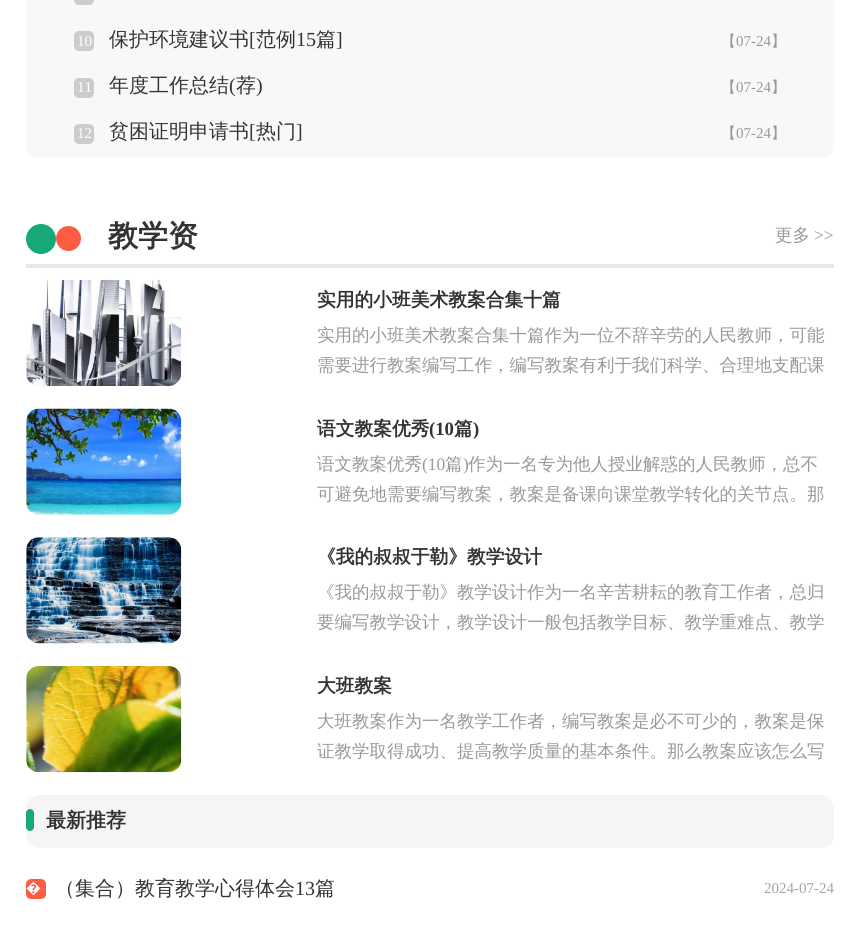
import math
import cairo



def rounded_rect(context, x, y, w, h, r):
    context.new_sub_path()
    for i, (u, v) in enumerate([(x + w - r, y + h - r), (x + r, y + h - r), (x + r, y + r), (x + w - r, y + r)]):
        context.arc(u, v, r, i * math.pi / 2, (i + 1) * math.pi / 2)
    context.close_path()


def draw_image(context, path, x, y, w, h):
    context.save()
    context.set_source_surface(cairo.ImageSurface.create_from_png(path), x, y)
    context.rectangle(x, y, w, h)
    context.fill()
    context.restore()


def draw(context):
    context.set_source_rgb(1, 1, 1)
    context.paint()
    context.set_source_rgb(248 / 255, 248 / 255, 248 / 255)
    rounded_rect(context, 26, -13, 808, 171, 13)
    context.fill()
    context.set_source_rgb(204 / 255, 204 / 255, 204 / 255)
    rounded_rect(context, 74, -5, 20, 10, 5)
    context.fill()
    rounded_rect(context, 74, 31, 20, 20, 5)
    context.fill()
    rounded_rect(context, 74, 78, 20, 20, 5)
    context.fill()
    rounded_rect(context, 74, 124, 20, 20, 5)
    context.fill()
    context.set_source_rgb(231 / 255, 231 / 255, 231 / 255)
    context.rectangle(26, 264, 808, 4)
    context.fill()
    context.set_source_rgb(24 / 255, 169 / 255, 122 / 255)
    context.arc(41, 239, 15, 0, 2 * math.pi)
    context.fill()
    context.set_source_rgb(252 / 255, 92 / 255, 66 / 255)
    context.arc(68.5, 238.5, 12.5, 0, 2 * math.pi)
    context.fill()
    draw_image(context, "images/1.png", 26, 279, 156, 107)
    draw_image(context, "images/2.png", 26, 408, 156, 107)
    draw_image(context, "images/3.png", 26, 537, 156, 107)
    draw_image(context, "images/4.png", 26, 666, 156, 107)
    context.set_source_rgb(245 / 255, 245 / 255, 248 / 255)
    rounded_rect(context, 26, 795, 808, 53, 13)
    context.fill()
    context.set_source_rgb(24 / 255, 169 / 255, 122 / 255)
    rounded_rect(context, 26, 809, 8, 22, 4)
    context.fill()
    context.set_source_rgb(252 / 255, 92 / 255, 66 / 255)
    rounded_rect(context, 26, 879, 20, 20, 5)
    context.fill()
    context.select_font_face("Liberation Serif")
    context.set_font_size(15)
    context.set_source_rgb(1, 1, 1)
    context.move_to(77, 46)
    context.show_text("10")
    context.select_font_face("WenQuanYi Zen Hei Medium")
    context.set_font_size(20)
    context.set_source_rgb(51 / 255, 51 / 255, 51 / 255)
    context.move_to(109, 46)
    context.show_text("保护环境建议书")
    context.select_font_face("Liberation Serif")
    context.move_to(249, 46)
    context.show_text("[")
    context.select_font_face("WenQuanYi Zen Hei Medium")
    context.move_to(256, 46)
    context.show_text("范例")
    context.select_font_face("Liberation Serif")
    context.move_to(296, 46)
    context.show_text("15")
    context.select_font_face("WenQuanYi Zen Hei Medium")
    context.move_to(316, 46)
    context.show_text("篇")
    context.select_font_face("Liberation Serif")
    context.move_to(336, 46)
    context.show_text("]")
    context.select_font_face("WenQuanYi Zen Hei Medium")
    context.set_font_size(15)
    context.set_source_rgb(153 / 255, 153 / 255, 153 / 255)
    context.move_to(721, 46)
    context.show_text("【")
    context.select_font_face("Liberation Serif")
    context.move_to(736, 46)
    context.show_text("07-24")
    context.select_font_face("WenQuanYi Zen Hei Medium")
    context.move_to(771, 46)
    context.show_text("】")
    context.select_font_face("Liberation Serif")
    context.set_source_rgb(1, 1, 1)
    context.move_to(77, 92)
    context.show_text("11")
    context.select_font_face("WenQuanYi Zen Hei Medium")
    context.set_font_size(20)
    context.set_source_rgb(51 / 255, 51 / 255, 51 / 255)
    context.move_to(109, 92)
    context.show_text("年度工作总结")
    context.select_font_face("Liberation Serif")
    context.move_to(229, 92)
    context.show_text("(")
    context.select_font_face("WenQuanYi Zen Hei Medium")
    context.move_to(236, 92)
    context.show_text("荐")
    context.select_font_face("Liberation Serif")
    context.move_to(256, 92)
    context.show_text(")")
    context.select_font_face("WenQuanYi Zen Hei Medium")
    context.set_font_size(15)
    context.set_source_rgb(153 / 255, 153 / 255, 153 / 255)
    context.move_to(721, 92)
    context.show_text("【")
    context.select_font_face("Liberation Serif")
    context.move_to(736, 92)
    context.show_text("07-24")
    context.select_font_face("WenQuanYi Zen Hei Medium")
    context.move_to(771, 92)
    context.show_text("】")
    context.select_font_face("Liberation Serif")
    context.set_source_rgb(1, 1, 1)
    context.move_to(77, 138)
    context.show_text("12")
    context.select_font_face("WenQuanYi Zen Hei Medium")
    context.set_font_size(20)
    context.set_source_rgb(51 / 255, 51 / 255, 51 / 255)
    context.move_to(109, 138)
    context.show_text("贫困证明申请书")
    context.select_font_face("Liberation Serif")
    context.move_to(249, 138)
    context.show_text("[")
    context.select_font_face("WenQuanYi Zen Hei Medium")
    context.move_to(256, 138)
    context.show_text("热门")
    context.select_font_face("Liberation Serif")
    context.move_to(296, 138)
    context.show_text("]")
    context.select_font_face("WenQuanYi Zen Hei Medium")
    context.set_font_size(15)
    context.set_source_rgb(153 / 255, 153 / 255, 153 / 255)
    context.move_to(721, 138)
    context.show_text("【")
    context.select_font_face("Liberation Serif")
    context.move_to(736, 138)
    context.show_text("07-24")
    context.select_font_face("WenQuanYi Zen Hei Medium")
    context.move_to(771, 138)
    context.show_text("】")
    context.select_font_face("WenQuanYi Zen Hei", cairo.FontSlant.NORMAL, cairo.FontWeight.BOLD)
    context.set_font_size(30)
    context.set_source_rgb(51 / 255, 51 / 255, 51 / 255)
    context.move_to(108, 246)
    context.show_text("教学资")
    context.select_font_face("WenQuanYi Zen Hei Medium")
    context.set_font_size(17.5)
    context.set_source_rgb(153 / 255, 153 / 255, 153 / 255)
    context.move_to(775, 241)
    context.show_text("更多")
    context.select_font_face("Liberation Serif")
    context.move_to(814, 241)
    context.show_text(">>")
    context.select_font_face("WenQuanYi Zen Hei", cairo.FontSlant.NORMAL, cairo.FontWeight.BOLD)
    context.set_font_size(18.75)
    context.set_source_rgb(51 / 255, 51 / 255, 51 / 255)
    context.move_to(317, 306)
    context.show_text("实用的小班美术教案合集十篇")
    context.select_font_face("WenQuanYi Zen Hei Medium")
    context.set_font_size(17.5)
    context.set_source_rgb(153 / 255, 153 / 255, 153 / 255)
    context.move_to(317, 341)
    context.show_text("实用的小班美术教案合集十篇作为一位不辞辛劳的人民教师，可能")
    context.move_to(317, 371)
    context.show_text("需要进行教案编写工作，编写教案有利于我们科学、合理地支配课")
    context.select_font_face("WenQuanYi Zen Hei", cairo.FontSlant.NORMAL, cairo.FontWeight.BOLD)
    context.set_font_size(18.75)
    context.set_source_rgb(51 / 255, 51 / 255, 51 / 255)
    context.move_to(317, 435)
    context.show_text("语文教案优秀")
    context.select_font_face("Liberation Serif", cairo.FontSlant.NORMAL, cairo.FontWeight.BOLD)
    context.move_to(429, 435)
    context.show_text("(10")
    context.select_font_face("WenQuanYi Zen Hei", cairo.FontSlant.NORMAL, cairo.FontWeight.BOLD)
    context.move_to(454, 435)
    context.show_text("篇")
    context.select_font_face("Liberation Serif", cairo.FontSlant.NORMAL, cairo.FontWeight.BOLD)
    context.move_to(473, 435)
    context.show_text(")")
    context.select_font_face("WenQuanYi Zen Hei Medium")
    context.set_font_size(17.5)
    context.set_source_rgb(153 / 255, 153 / 255, 153 / 255)
    context.move_to(317, 470)
    context.show_text("语文教案优秀")
    context.select_font_face("Liberation Serif")
    context.move_to(422, 470)
    context.show_text("(10")
    context.select_font_face("WenQuanYi Zen Hei Medium")
    context.move_to(445, 470)
    context.show_text("篇")
    context.select_font_face("Liberation Serif")
    context.move_to(463, 470)
    context.show_text(")")
    context.select_font_face("WenQuanYi Zen Hei Medium")
    context.move_to(468, 470)
    context.show_text("作为一名专为他人授业解惑的人民教师，总不")
    context.move_to(317, 500)
    context.show_text("可避免地需要编写教案，教案是备课向课堂教学转化的关节点。那")
    context.select_font_face("WenQuanYi Zen Hei", cairo.FontSlant.NORMAL, cairo.FontWeight.BOLD)
    context.set_font_size(18.75)
    context.set_source_rgb(51 / 255, 51 / 255, 51 / 255)
    context.move_to(317, 563)
    context.show_text("《我的叔叔于勒》教学设计")
    context.select_font_face("WenQuanYi Zen Hei Medium")
    context.set_font_size(17.5)
    context.set_source_rgb(153 / 255, 153 / 255, 153 / 255)
    context.move_to(317, 598)
    context.show_text("《我的叔叔于勒》教学设计作为一名辛苦耕耘的教育工作者，总归")
    context.move_to(317, 628)
    context.show_text("要编写教学设计，教学设计一般包括教学目标、教学重难点、教学")
    context.select_font_face("WenQuanYi Zen Hei", cairo.FontSlant.NORMAL, cairo.FontWeight.BOLD)
    context.set_font_size(18.75)
    context.set_source_rgb(51 / 255, 51 / 255, 51 / 255)
    context.move_to(317, 692)
    context.show_text("大班教案")
    context.select_font_face("WenQuanYi Zen Hei Medium")
    context.set_font_size(17.5)
    context.set_source_rgb(153 / 255, 153 / 255, 153 / 255)
    context.move_to(317, 727)
    context.show_text("大班教案作为一名教学工作者，编写教案是必不可少的，教案是保")
    context.move_to(317, 757)
    context.show_text("证教学取得成功、提高教学质量的基本条件。那么教案应该怎么写")
    context.select_font_face("WenQuanYi Zen Hei", cairo.FontSlant.NORMAL, cairo.FontWeight.BOLD)
    context.set_font_size(20)
    context.set_source_rgb(51 / 255, 51 / 255, 51 / 255)
    context.move_to(46, 827)
    context.show_text("最新推荐")
    context.select_font_face("Noto Sans")
    context.set_font_size(15)
    context.set_source_rgb(1, 1, 1)
    context.move_to(26, 893)
    context.show_text("�")
    context.select_font_face("WenQuanYi Zen Hei Medium")
    context.set_font_size(20)
    context.set_source_rgb(51 / 255, 51 / 255, 51 / 255)
    context.move_to(55, 895)
    context.show_text("（集合）教育教学心得体会")
    context.select_font_face("Liberation Serif")
    context.move_to(295, 895)
    context.show_text("13")
    context.select_font_face("WenQuanYi Zen Hei Medium")
    context.move_to(315, 895)
    context.show_text("篇")
    context.select_font_face("Liberation Serif")
    context.set_font_size(15)
    context.set_source_rgb(165 / 255, 165 / 255, 165 / 255)
    context.move_to(764, 893)
    context.show_text("2024-07-24")


surface = cairo.ImageSurface(cairo.Format.RGB24, 860, 925)
context = cairo.Context(surface)
options = cairo.FontOptions()
options.set_hint_metrics(cairo.HintMetrics.OFF)
options.set_hint_style(cairo.HintStyle.NONE)
context.set_font_options(options)
context.set_miter_limit(4)
draw(context)
surface.write_to_png("out.png")
